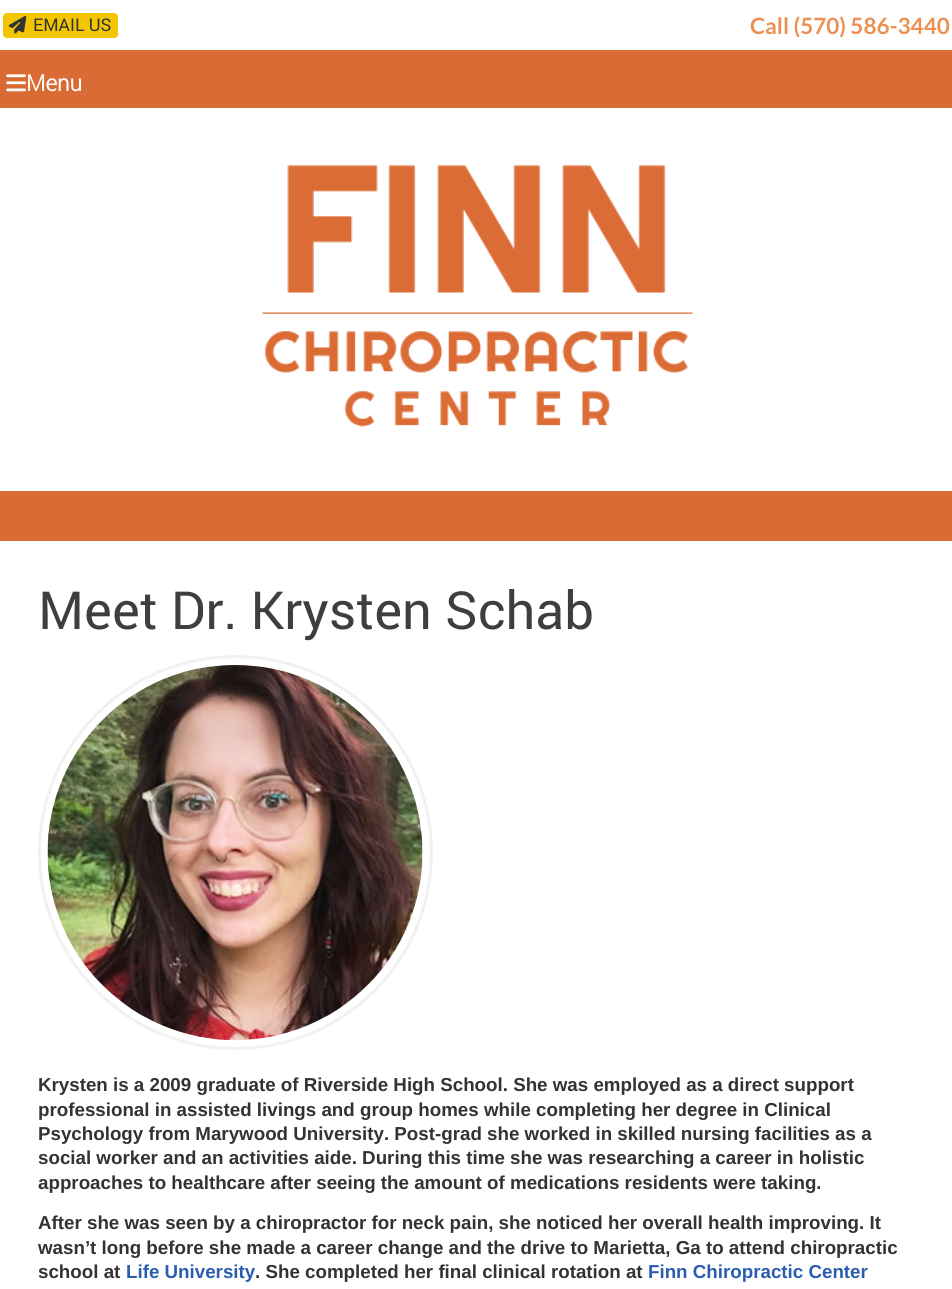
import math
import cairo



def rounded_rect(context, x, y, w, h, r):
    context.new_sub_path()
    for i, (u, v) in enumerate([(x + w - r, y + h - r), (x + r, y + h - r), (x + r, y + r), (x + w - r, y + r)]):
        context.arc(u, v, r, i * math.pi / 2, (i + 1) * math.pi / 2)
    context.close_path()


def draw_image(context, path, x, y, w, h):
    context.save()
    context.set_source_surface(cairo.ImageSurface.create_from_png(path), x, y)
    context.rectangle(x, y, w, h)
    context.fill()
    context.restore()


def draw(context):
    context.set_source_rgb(1, 1, 1)
    context.paint()
    context.set_source_rgb(242 / 255, 198 / 255, 0)
    rounded_rect(context, 3, 13, 115, 25, 4)
    context.fill()
    draw_image(context, "images/1.png", 8, 16, 19, 18)
    context.set_source_rgb(219 / 255, 107 / 255, 53 / 255)
    context.rectangle(0, 50, 952, 58)
    context.fill()
    draw_image(context, "images/2.png", 6, 74, 20, 18)
    draw_image(context, "images/3.png", 262, 164, 431, 263)
    context.rectangle(0, 491, 952, 50)
    context.fill()
    context.arc(235.5, 852.5, 196, 0, 2 * math.pi)
    context.set_source_rgb(241 / 255, 241 / 255, 241 / 255)
    context.set_line_width(3)
    context.stroke()
    draw_image(context, "images/4.png", 47, 665, 376, 375)
    context.select_font_face("roboto")
    context.set_font_size(17.5)
    context.set_source_rgb(51 / 255, 51 / 255, 51 / 255)
    context.move_to(33, 31)
    context.show_text("EMAIL US")
    context.select_font_face("Lato", cairo.FontSlant.NORMAL, cairo.FontWeight.BOLD)
    context.set_font_size(22.5)
    context.set_source_rgb(235 / 255, 145 / 255, 83 / 255)
    context.move_to(750, 34)
    context.show_text("Call (570) 586-3440")
    context.select_font_face("Roboto", cairo.FontSlant.NORMAL, cairo.FontWeight.BOLD)
    context.set_source_rgb(1, 1, 1)
    context.move_to(26, 91)
    context.show_text("Menu")
    context.select_font_face("roboto")
    context.set_font_size(52.5)
    context.set_source_rgb(62 / 255, 62 / 255, 62 / 255)
    context.move_to(38, 629)
    context.show_text("Meet Dr. Krysten Schab")
    context.select_font_face("Liberation Sans", cairo.FontSlant.NORMAL, cairo.FontWeight.BOLD)
    context.set_font_size(18.75)
    context.set_source_rgb(51 / 255, 51 / 255, 51 / 255)
    context.move_to(38, 1091)
    context.show_text("Krysten is a 2009 graduate of Riverside High School. She was employed as a direct support")
    context.move_to(38, 1116)
    context.show_text("professional in assisted livings and group homes while completing her degree in Clinical")
    context.move_to(38, 1140)
    context.show_text("Psychology from Marywood University. Post-grad she worked in skilled nursing facilities as a")
    context.move_to(38, 1164)
    context.show_text("social worker and an activities aide. During this time she was researching a career in holistic")
    context.move_to(38, 1189)
    context.show_text("approaches to healthcare after seeing the amount of medications residents were taking.")
    context.move_to(38, 1229)
    context.show_text("After she was seen by a chiropractor for neck pain, she noticed her overall health improving. It")
    context.move_to(38, 1254)
    context.show_text("wasn’t long before she made a career change and the drive to Marietta, Ga to attend chiropractic")
    context.move_to(38, 1278)
    context.show_text("school at")
    context.set_source_rgb(42 / 255, 93 / 255, 176 / 255)
    context.move_to(126, 1278)
    context.show_text("Life University")
    context.set_source_rgb(51 / 255, 51 / 255, 51 / 255)
    context.move_to(255, 1278)
    context.show_text(". She completed her final clinical rotation at")
    context.set_source_rgb(42 / 255, 93 / 255, 176 / 255)
    context.move_to(648, 1278)
    context.show_text("Finn Chiropractic Center")


surface = cairo.ImageSurface(cairo.Format.RGB24, 952, 1289)
context = cairo.Context(surface)
options = cairo.FontOptions()
options.set_hint_metrics(cairo.HintMetrics.OFF)
options.set_hint_style(cairo.HintStyle.NONE)
context.set_font_options(options)
context.set_miter_limit(4)
draw(context)
surface.write_to_png("out.png")
